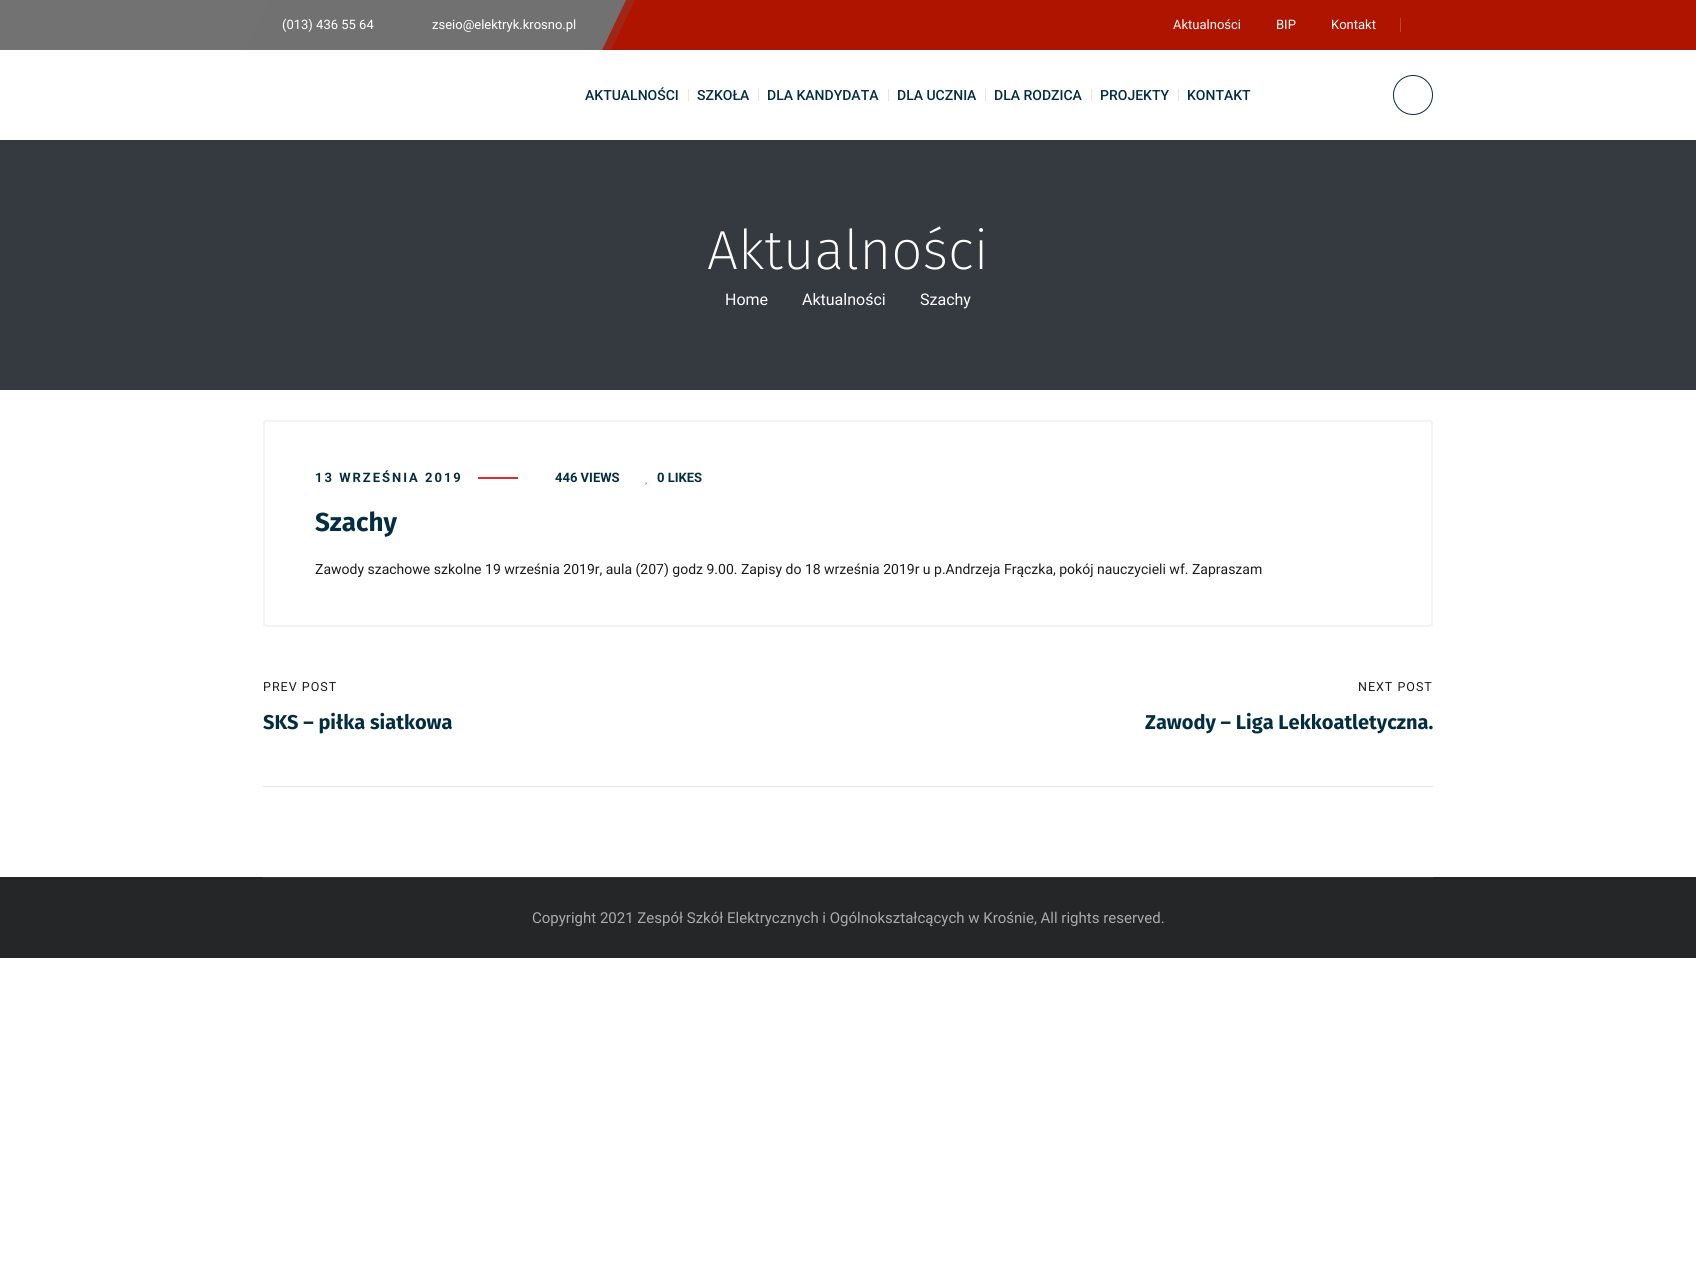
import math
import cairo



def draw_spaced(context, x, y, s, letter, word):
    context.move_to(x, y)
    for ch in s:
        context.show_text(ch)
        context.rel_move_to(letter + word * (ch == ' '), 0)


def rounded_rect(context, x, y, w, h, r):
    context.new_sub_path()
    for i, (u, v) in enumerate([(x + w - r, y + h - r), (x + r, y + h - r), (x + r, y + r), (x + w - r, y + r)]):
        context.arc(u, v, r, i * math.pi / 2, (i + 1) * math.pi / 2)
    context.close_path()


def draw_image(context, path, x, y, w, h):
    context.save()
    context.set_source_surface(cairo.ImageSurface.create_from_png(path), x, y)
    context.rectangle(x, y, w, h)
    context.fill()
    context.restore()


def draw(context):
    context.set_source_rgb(1, 1, 1)
    context.paint()
    context.set_source_rgb(175 / 255, 20 / 255, 0)
    context.rectangle(602, 0, 1094, 50)
    context.fill()
    context.set_source_rgb(114 / 255, 114 / 255, 114 / 255)
    context.rectangle(0, 0, 260, 50)
    context.fill()
    context.new_path()
    context.move_to(260, 0)
    context.line_to(626, 0)
    context.line_to(602, 50)
    context.line_to(236, 50)
    context.close_path()
    context.fill()
    context.set_source_rgba(114 / 255, 114 / 255, 114 / 255, 0.2)
    context.new_path()
    context.move_to(269, 0)
    context.line_to(635, 0)
    context.line_to(611, 50)
    context.line_to(245, 50)
    context.close_path()
    context.fill()
    context.set_source_rgb(191 / 255, 67 / 255, 51 / 255)
    context.rectangle(1400, 18, 1, 14)
    context.fill()
    context.set_source_rgb(230 / 255, 230 / 255, 230 / 255)
    context.rectangle(688, 89, 1, 12)
    context.fill()
    context.rectangle(758, 89, 1, 12)
    context.fill()
    context.rectangle(888, 89, 1, 12)
    context.fill()
    context.rectangle(985, 89, 1, 12)
    context.fill()
    context.rectangle(1091, 89, 1, 12)
    context.fill()
    context.rectangle(1178, 89, 1, 12)
    context.fill()
    context.arc(1413, 95, 19.5, 0, 2 * math.pi)
    context.set_source_rgb(3 / 255, 46 / 255, 66 / 255)
    context.set_line_width(1)
    context.stroke()
    context.set_source_rgb(52 / 255, 58 / 255, 64 / 255)
    context.rectangle(0, 140, 1696, 250)
    context.fill()
    rounded_rect(context, 264, 421, 1168, 205, 2)
    context.set_source_rgb(243 / 255, 243 / 255, 243 / 255)
    context.set_line_width(2)
    context.stroke()
    context.set_source_rgb(216 / 255, 48 / 255, 48 / 255)
    context.rectangle(478, 477, 40, 2)
    context.fill()
    draw_image(context, "images/1.png", 645, 482, 2, 3)
    context.set_source_rgb(230 / 255, 230 / 255, 230 / 255)
    context.rectangle(263, 786, 1170, 1)
    context.fill()
    context.set_source_rgb(37 / 255, 38 / 255, 40 / 255)
    context.rectangle(0, 877, 1696, 81)
    context.fill()
    context.set_source_rgb(59 / 255, 60 / 255, 63 / 255)
    context.rectangle(263, 877, 1170, 1)
    context.fill()
    context.select_font_face("Roboto")
    context.set_font_size(13)
    context.set_source_rgb(1, 1, 1)
    context.move_to(282, 29)
    context.show_text("(013) 436 55 64")
    context.move_to(432, 29)
    context.show_text("zseio@elektryk.krosno.pl")
    context.move_to(1173, 29)
    context.show_text("Aktualności")
    context.move_to(1276, 29)
    context.show_text("BIP")
    context.move_to(1331, 29)
    context.show_text("Kontakt")
    context.select_font_face("Roboto Medium")
    context.set_font_size(14)
    context.set_source_rgb(3 / 255, 46 / 255, 66 / 255)
    context.move_to(585, 100)
    context.show_text("AKTUALNOŚCI")
    context.move_to(697, 100)
    context.show_text("SZKOŁA")
    context.move_to(767, 100)
    context.show_text("DLA KANDYDATA")
    context.move_to(897, 100)
    context.show_text("DLA UCZNIA")
    context.move_to(994, 100)
    context.show_text("DLA RODZICA")
    context.move_to(1100, 100)
    context.show_text("PROJEKTY")
    context.move_to(1187, 100)
    context.show_text("KONTAKT")
    context.select_font_face("Fira Sans ExtraLight")
    context.set_font_size(55)
    context.set_source_rgb(1, 1, 1)
    context.move_to(707, 269)
    context.show_text("Aktualności")
    context.select_font_face("Roboto")
    context.set_font_size(16)
    context.move_to(725, 305)
    context.show_text("Home")
    context.move_to(802, 305)
    context.show_text("Aktualności")
    context.move_to(920, 305)
    context.show_text("Szachy")
    context.select_font_face("Roboto", cairo.FontSlant.NORMAL, cairo.FontWeight.BOLD)
    context.set_font_size(13)
    context.set_source_rgb(3 / 255, 46 / 255, 66 / 255)
    draw_spaced(context, 315, 482, "13 WRZEŚNIA 2019", 2, 0)
    context.move_to(555, 482)
    context.show_text("446 VIEWS")
    context.move_to(657, 482)
    context.show_text("0 LIKES")
    context.select_font_face("Fira Sans", cairo.FontSlant.NORMAL, cairo.FontWeight.BOLD)
    context.set_font_size(26)
    context.move_to(315, 531)
    context.show_text("Szachy")
    context.select_font_face("Roboto")
    context.set_font_size(14)
    context.set_source_rgb(28 / 255, 28 / 255, 28 / 255)
    context.move_to(315, 574)
    context.show_text("Zawody szachowe szkolne 19 września 2019r, aula (207) godz 9.00. Zapisy do 18 września 2019r u p.Andrzeja Frączka, pokój nauczycieli wf. Zapraszam")
    context.set_font_size(12.5)
    draw_spaced(context, 263, 691, "PREV POST", 1, 0)
    context.select_font_face("Fira Sans", cairo.FontSlant.NORMAL, cairo.FontWeight.BOLD)
    context.set_font_size(20)
    context.set_source_rgb(3 / 255, 46 / 255, 66 / 255)
    context.move_to(263, 729)
    context.show_text("SKS – piłka siatkowa")
    context.select_font_face("Roboto")
    context.set_font_size(12.5)
    context.set_source_rgb(28 / 255, 28 / 255, 28 / 255)
    draw_spaced(context, 1358, 691, "NEXT POST", 1, 0)
    context.select_font_face("Fira Sans", cairo.FontSlant.NORMAL, cairo.FontWeight.BOLD)
    context.set_font_size(20)
    context.set_source_rgb(3 / 255, 46 / 255, 66 / 255)
    context.move_to(1145, 729)
    context.show_text("Zawody – Liga Lekkoatletyczna.")
    context.select_font_face("Roboto")
    context.set_font_size(15)
    context.set_source_rgb(170 / 255, 170 / 255, 170 / 255)
    context.move_to(532, 923)
    context.show_text("Copyright 2021 Zespół Szkół Elektrycznych i Ogólnokształcących w Krośnie, All rights reserved.")


surface = cairo.ImageSurface(cairo.Format.RGB24, 1696, 1270)
context = cairo.Context(surface)
options = cairo.FontOptions()
options.set_hint_metrics(cairo.HintMetrics.OFF)
options.set_hint_style(cairo.HintStyle.NONE)
context.set_font_options(options)
context.set_miter_limit(4)
draw(context)
surface.write_to_png("out.png")
